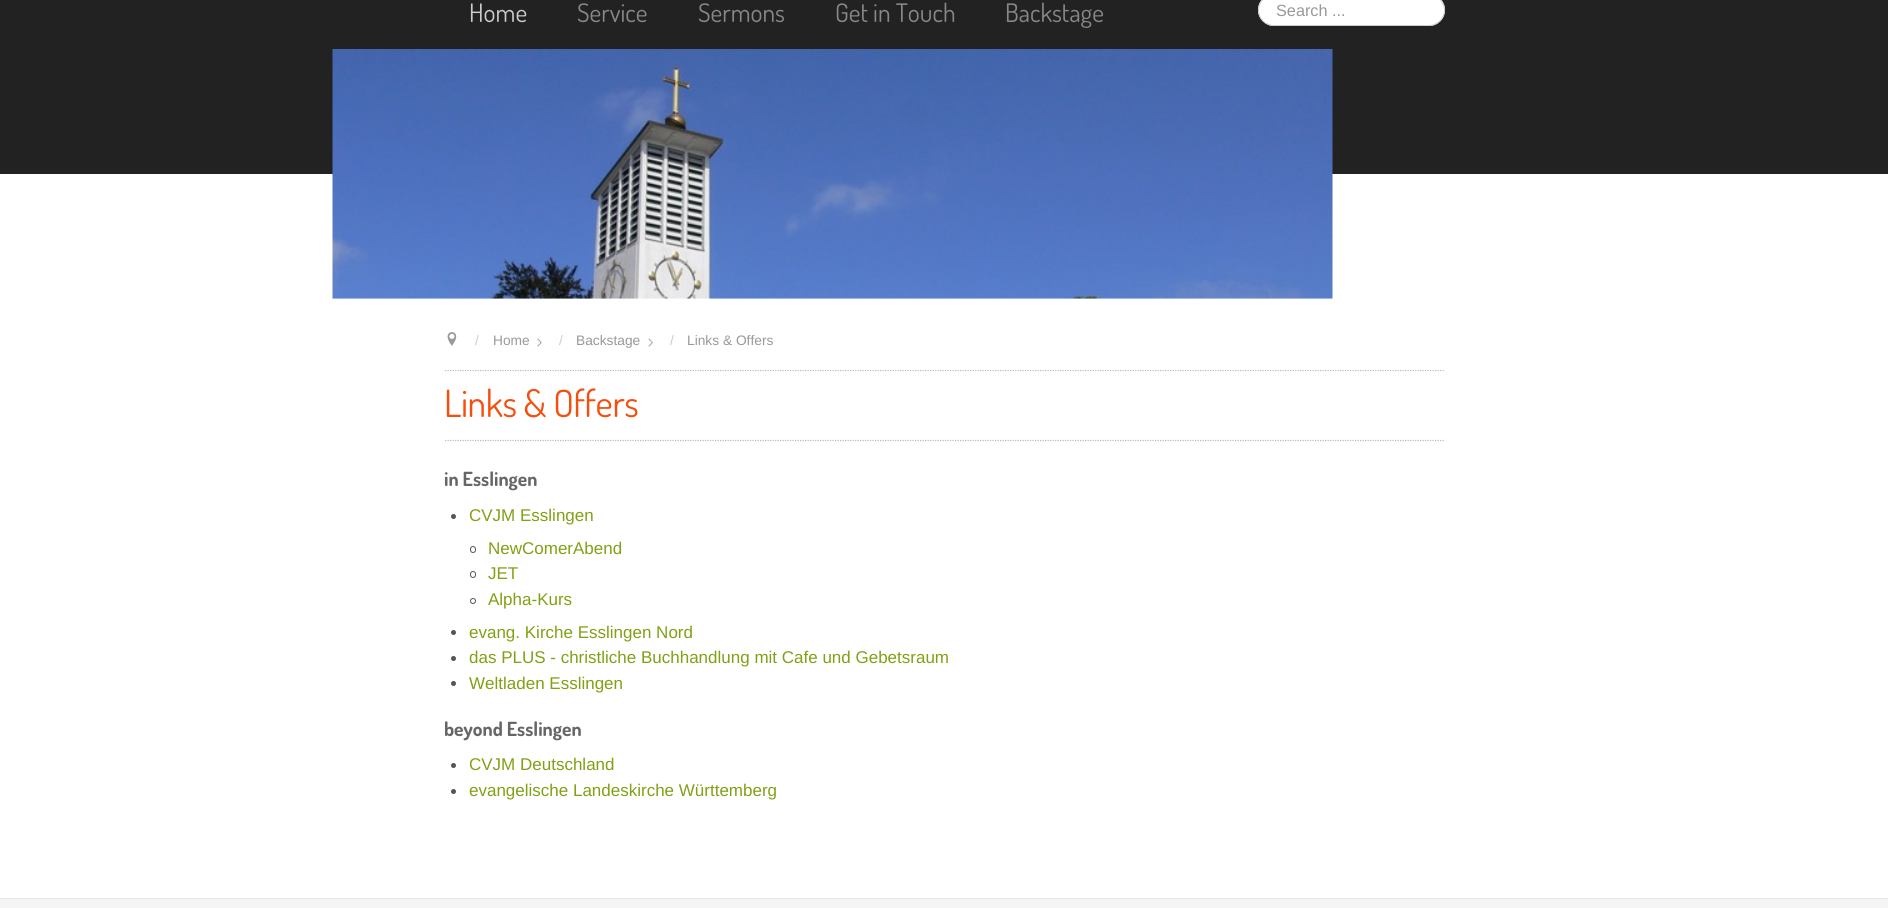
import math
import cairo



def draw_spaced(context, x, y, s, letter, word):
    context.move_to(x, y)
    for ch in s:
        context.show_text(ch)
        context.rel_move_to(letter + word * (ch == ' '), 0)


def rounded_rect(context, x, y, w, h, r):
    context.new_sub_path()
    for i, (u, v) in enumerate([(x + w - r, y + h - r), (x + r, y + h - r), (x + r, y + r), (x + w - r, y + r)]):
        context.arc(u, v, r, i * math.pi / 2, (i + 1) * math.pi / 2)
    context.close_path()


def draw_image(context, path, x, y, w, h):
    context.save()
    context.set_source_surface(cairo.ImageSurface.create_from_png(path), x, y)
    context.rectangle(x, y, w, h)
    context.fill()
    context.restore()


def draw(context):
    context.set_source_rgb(1, 1, 1)
    context.paint()
    context.set_source_rgb(34 / 255, 34 / 255, 34 / 255)
    context.rectangle(0, 0, 1888, 174)
    context.fill()
    draw_image(context, "images/1.png", 332, 49, 1001, 250)
    context.set_source_rgb(1, 1, 1)
    rounded_rect(context, 1258, -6, 187, 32, 16)
    context.fill()
    context.set_source_rgba(0, 0, 0, 0.07)
    context.new_path()
    context.move_to(1274, -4)
    context.line_to(1429, -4)
    context.curve_to(1437, -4, 1444, 3, 1444, 11)
    context.curve_to(1445, -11, 1414, -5, 1403, -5)
    context.line_to(1300, -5)
    context.curve_to(1289, -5, 1258, -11, 1259, 10)
    context.curve_to(1259, 3, 1265, -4, 1274, -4)
    context.close_path()
    context.fill()
    rounded_rect(context, 1258.5, -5.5, 186, 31, 15.5)
    context.set_source_rgb(204 / 255, 204 / 255, 204 / 255)
    context.set_line_width(1)
    context.stroke()
    draw_image(context, "images/2.png", 447, 332, 10, 14)
    draw_image(context, "images/3.png", 537, 338, 5, 9)
    draw_image(context, "images/4.png", 648, 338, 5, 9)
    context.save()
    context.rectangle(445, 370, 1000, 459)
    context.clip()
    context.new_path()
    context.move_to(445, 370.5)
    context.line_to(1445, 370.5)
    context.set_source_rgb(187 / 255, 187 / 255, 187 / 255)
    context.set_line_width(1.2)
    context.set_dash([1.25, 1.25])
    context.stroke()
    context.restore()
    context.new_path()
    context.move_to(445, 440.5)
    context.line_to(1445, 440.5)
    context.set_source_rgb(187 / 255, 187 / 255, 187 / 255)
    context.set_line_width(1.2)
    context.set_dash([1.25, 1.25])
    context.stroke()
    context.set_source_rgb(85 / 255, 85 / 255, 85 / 255)
    context.arc(453.5, 516.5, 2.5, 0, 2 * math.pi)
    context.fill()
    rounded_rect(context, 470.5, 546.5, 5, 6, 2.5)
    context.set_line_width(1)
    context.set_dash([])
    context.stroke()
    rounded_rect(context, 470.5, 571.5, 5, 6, 2.5)
    context.stroke()
    context.arc(473, 601, 2.5, 0, 2 * math.pi)
    context.stroke()
    context.arc(453.5, 632.5, 2.5, 0, 2 * math.pi)
    context.fill()
    context.arc(453.5, 658.5, 2.5, 0, 2 * math.pi)
    context.fill()
    context.arc(453.5, 683.5, 2.5, 0, 2 * math.pi)
    context.fill()
    context.arc(453.5, 765.5, 2.5, 0, 2 * math.pi)
    context.fill()
    context.arc(453.5, 791.5, 2.5, 0, 2 * math.pi)
    context.fill()
    context.set_source_rgb(245 / 255, 245 / 255, 245 / 255)
    context.rectangle(0, 899, 1888, 9)
    context.fill()
    context.set_source_rgb(230 / 255, 230 / 255, 230 / 255)
    context.rectangle(0, 898, 1888, 1)
    context.fill()
    context.select_font_face("Dosis")
    context.set_font_size(25.5)
    context.set_source_rgb(204 / 255, 204 / 255, 204 / 255)
    context.move_to(469, 22)
    context.show_text("Home")
    context.set_source_rgb(136 / 255, 136 / 255, 136 / 255)
    context.move_to(577, 22)
    context.show_text("Service")
    context.move_to(698, 22)
    context.show_text("Sermons")
    context.move_to(835, 22)
    context.show_text("Get in Touch")
    context.move_to(1005, 22)
    context.show_text("Backstage")
    context.select_font_face("Liberation Sans")
    context.set_font_size(16.25)
    context.set_source_rgb(153 / 255, 153 / 255, 153 / 255)
    context.move_to(1276, 16)
    context.show_text("Search ...")
    context.set_font_size(13.75)
    context.set_source_rgb(204 / 255, 204 / 255, 204 / 255)
    context.move_to(475, 345)
    context.show_text("/")
    context.set_source_rgb(153 / 255, 153 / 255, 153 / 255)
    context.move_to(493, 345)
    context.show_text("Home")
    context.set_source_rgb(204 / 255, 204 / 255, 204 / 255)
    context.move_to(559, 345)
    context.show_text("/")
    context.set_source_rgb(153 / 255, 153 / 255, 153 / 255)
    context.move_to(576, 345)
    context.show_text("Backstage")
    context.set_source_rgb(204 / 255, 204 / 255, 204 / 255)
    context.move_to(670, 345)
    context.show_text("/")
    context.set_source_rgb(153 / 255, 153 / 255, 153 / 255)
    context.move_to(687, 345)
    context.show_text("Links & Offers")
    context.select_font_face("Dosis")
    context.set_font_size(37.5)
    context.set_source_rgb(244 / 255, 79 / 255, 14 / 255)
    draw_spaced(context, 444, 417, "Links & Offers", -0.4, 0)
    context.select_font_face("Dosis", cairo.FontSlant.NORMAL, cairo.FontWeight.BOLD)
    context.set_font_size(19.5)
    context.set_source_rgb(102 / 255, 102 / 255, 102 / 255)
    context.move_to(444, 486)
    context.show_text("in Esslingen")
    context.select_font_face("Liberation Sans")
    context.set_font_size(17)
    context.set_source_rgb(128 / 255, 161 / 255, 20 / 255)
    context.move_to(469, 521)
    context.show_text("CVJM Esslingen")
    context.move_to(488, 554)
    context.show_text("NewComerAbend")
    context.move_to(488, 579)
    context.show_text("JET")
    context.move_to(488, 605)
    context.show_text("Alpha-Kurs")
    context.move_to(469, 638)
    context.show_text("evang. Kirche Esslingen Nord")
    context.move_to(469, 663)
    context.show_text("das PLUS - christliche Buchhandlung mit Cafe und Gebetsraum")
    context.move_to(469, 689)
    context.show_text("Weltladen Esslingen")
    context.select_font_face("Dosis", cairo.FontSlant.NORMAL, cairo.FontWeight.BOLD)
    context.set_font_size(19.5)
    context.set_source_rgb(102 / 255, 102 / 255, 102 / 255)
    context.move_to(444, 736)
    context.show_text("beyond Esslingen")
    context.select_font_face("Liberation Sans")
    context.set_font_size(17)
    context.set_source_rgb(128 / 255, 161 / 255, 20 / 255)
    context.move_to(469, 770)
    context.show_text("CVJM Deutschland")
    context.move_to(469, 796)
    context.show_text("evangelische Landeskirche Württemberg")


surface = cairo.ImageSurface(cairo.Format.RGB24, 1888, 908)
context = cairo.Context(surface)
options = cairo.FontOptions()
options.set_hint_metrics(cairo.HintMetrics.OFF)
options.set_hint_style(cairo.HintStyle.NONE)
context.set_font_options(options)
context.set_miter_limit(4)
draw(context)
surface.write_to_png("out.png")
